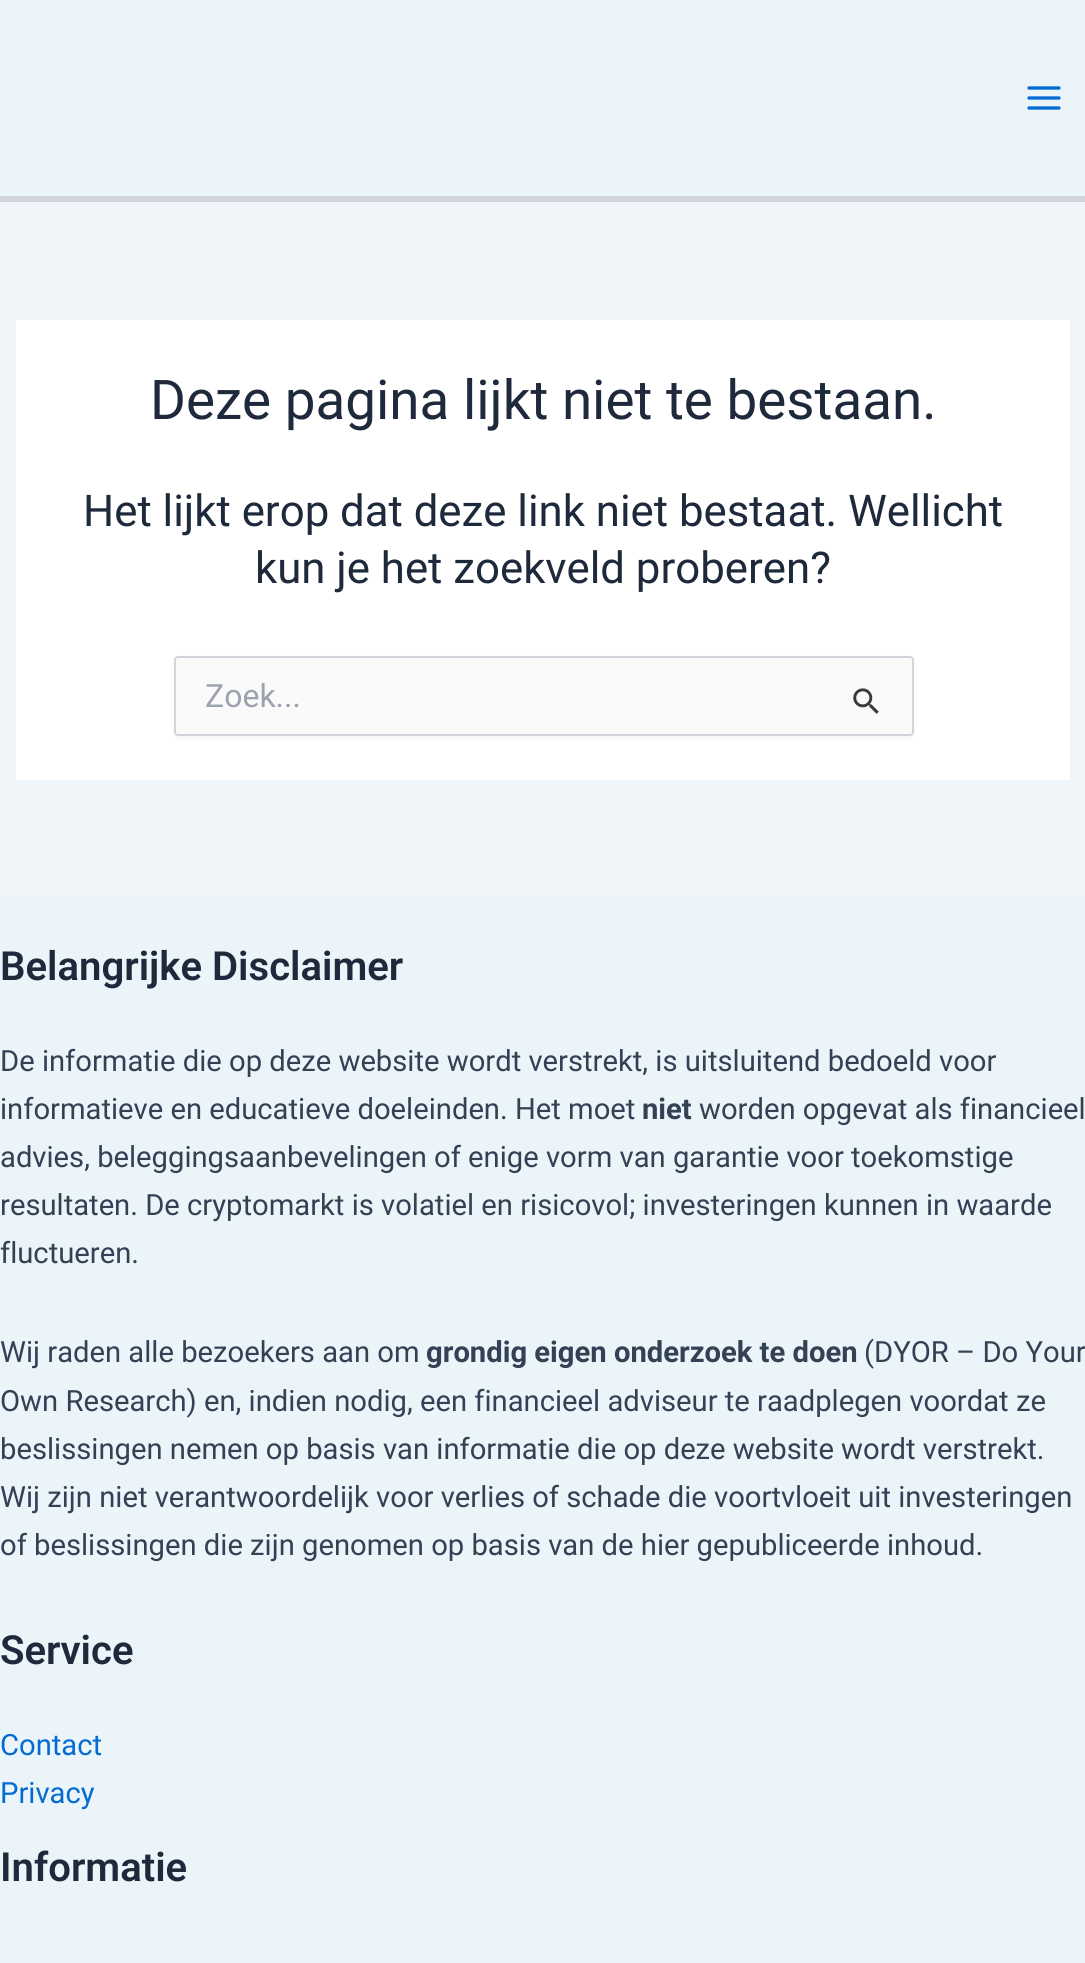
import math
import cairo



def rounded_rect(context, x, y, w, h, r):
    context.new_sub_path()
    for i, (u, v) in enumerate([(x + w - r, y + h - r), (x + r, y + h - r), (x + r, y + r), (x + w - r, y + r)]):
        context.arc(u, v, r, i * math.pi / 2, (i + 1) * math.pi / 2)
    context.close_path()


def draw_shadow(context, x, y, w, h, r, blur, alpha):
    context.push_group_with_content(cairo.Content.ALPHA)
    context.set_operator(cairo.Operator.SOURCE)
    for i in range(15, -16, -2):
        e = blur * i / 6
        if min(w, h) + 2 * e > 0:
            context.set_source_rgba(0, 0, 0, alpha * math.erfc((i - 1) / 8.5) / 2)
            rounded_rect(context, x - e, y - e, w + 2 * e, h + 2 * e, max(0, min(r + e + blur * .6, min(w, h) / 2 + e)))
            context.fill()
    context.mask(context.pop_group())


def draw_image(context, path, x, y, w, h):
    context.save()
    context.set_source_surface(cairo.ImageSurface.create_from_png(path), x, y)
    context.rectangle(x, y, w, h)
    context.fill()
    context.restore()


def draw(context):
    context.set_source_rgb(240 / 255, 245 / 255, 250 / 255)
    context.paint()
    context.set_source_rgb(234 / 255, 244 / 255, 249 / 255)
    context.rectangle(0, 0, 1085, 196)
    context.fill()
    context.set_source_rgb(209 / 255, 213 / 255, 219 / 255)
    context.rectangle(0, 196, 1085, 6)
    context.fill()
    draw_image(context, "images/1.png", 1027, 86, 34, 24)
    context.set_source_rgb(1, 1, 1)
    context.rectangle(16, 320, 1054, 460)
    context.fill()
    context.set_source_rgb(0, 0, 0)
    draw_shadow(context, 174, 658, 740, 80, 4, 2, 0.05)
    context.set_source_rgb(250 / 255, 250 / 255, 250 / 255)
    rounded_rect(context, 175, 657, 738, 78, 3)
    context.fill_preserve()
    context.set_source_rgb(209 / 255, 213 / 255, 219 / 255)
    context.stroke()
    draw_image(context, "images/2.png", 853, 688, 26, 26)
    context.set_source_rgb(234 / 255, 244 / 255, 249 / 255)
    context.rectangle(0, 896, 1085, 1067)
    context.fill()
    context.select_font_face("Roboto")
    context.set_font_size(54.75)
    context.set_source_rgb(30 / 255, 41 / 255, 59 / 255)
    context.move_to(150, 419)
    context.show_text("Deze pagina lijkt niet te bestaan.")
    context.set_font_size(43.75)
    context.move_to(83, 526)
    context.show_text("Het lijkt erop dat deze link niet bestaat. Wellicht")
    context.move_to(255, 583)
    context.show_text("kun je het zoekveld proberen?")
    context.set_font_size(32)
    context.set_source_rgb(156 / 255, 163 / 255, 175 / 255)
    context.move_to(205, 707)
    context.show_text("Zoek...")
    context.select_font_face("Roboto SemiBold")
    context.set_font_size(40.1)
    context.set_source_rgb(30 / 255, 41 / 255, 59 / 255)
    context.move_to(0, 980)
    context.show_text("Belangrijke Disclaimer")
    context.select_font_face("Roboto")
    context.set_font_size(29.2)
    context.set_source_rgb(51 / 255, 65 / 255, 85 / 255)
    context.move_to(0, 1071)
    context.show_text("De informatie die op deze website wordt verstrekt, is uitsluitend bedoeld voor")
    context.move_to(0, 1119)
    context.show_text("informatieve en educatieve doeleinden. Het moet")
    context.select_font_face("Roboto", cairo.FontSlant.NORMAL, cairo.FontWeight.BOLD)
    context.move_to(642, 1119)
    context.show_text("niet")
    context.select_font_face("Roboto")
    context.move_to(699, 1119)
    context.show_text("worden opgevat als financieel")
    context.move_to(0, 1167)
    context.show_text("advies, beleggingsaanbevelingen of enige vorm van garantie voor toekomstige")
    context.move_to(0, 1215)
    context.show_text("resultaten. De cryptomarkt is volatiel en risicovol; investeringen kunnen in waarde")
    context.move_to(0, 1263)
    context.show_text("fluctueren.")
    context.move_to(0, 1362)
    context.show_text("Wij raden alle bezoekers aan om")
    context.select_font_face("Roboto", cairo.FontSlant.NORMAL, cairo.FontWeight.BOLD)
    context.move_to(426, 1362)
    context.show_text("grondig eigen onderzoek te doen")
    context.select_font_face("Roboto")
    context.move_to(864, 1362)
    context.show_text("(DYOR – Do Your")
    context.move_to(0, 1411)
    context.show_text("Own Research) en, indien nodig, een financieel adviseur te raadplegen voordat ze")
    context.move_to(0, 1459)
    context.show_text("beslissingen nemen op basis van informatie die op deze website wordt verstrekt.")
    context.move_to(0, 1507)
    context.show_text("Wij zijn niet verantwoordelijk voor verlies of schade die voortvloeit uit investeringen")
    context.move_to(0, 1555)
    context.show_text("of beslissingen die zijn genomen op basis van de hier gepubliceerde inhoud.")
    context.select_font_face("Roboto SemiBold")
    context.set_font_size(40.1)
    context.set_source_rgb(30 / 255, 41 / 255, 59 / 255)
    context.move_to(0, 1664)
    context.show_text("Service")
    context.select_font_face("Roboto")
    context.set_font_size(29.2)
    context.set_source_rgb(4 / 255, 107 / 255, 210 / 255)
    context.move_to(0, 1755)
    context.show_text("Contact")
    context.move_to(0, 1803)
    context.show_text("Privacy")
    context.select_font_face("Roboto SemiBold")
    context.set_font_size(40.1)
    context.set_source_rgb(30 / 255, 41 / 255, 59 / 255)
    context.move_to(0, 1881)
    context.show_text("Informatie")


surface = cairo.ImageSurface(cairo.Format.RGB24, 1085, 1963)
context = cairo.Context(surface)
options = cairo.FontOptions()
options.set_hint_metrics(cairo.HintMetrics.OFF)
options.set_hint_style(cairo.HintStyle.NONE)
context.set_font_options(options)
context.set_miter_limit(4)
draw(context)
surface.write_to_png("out.png")
